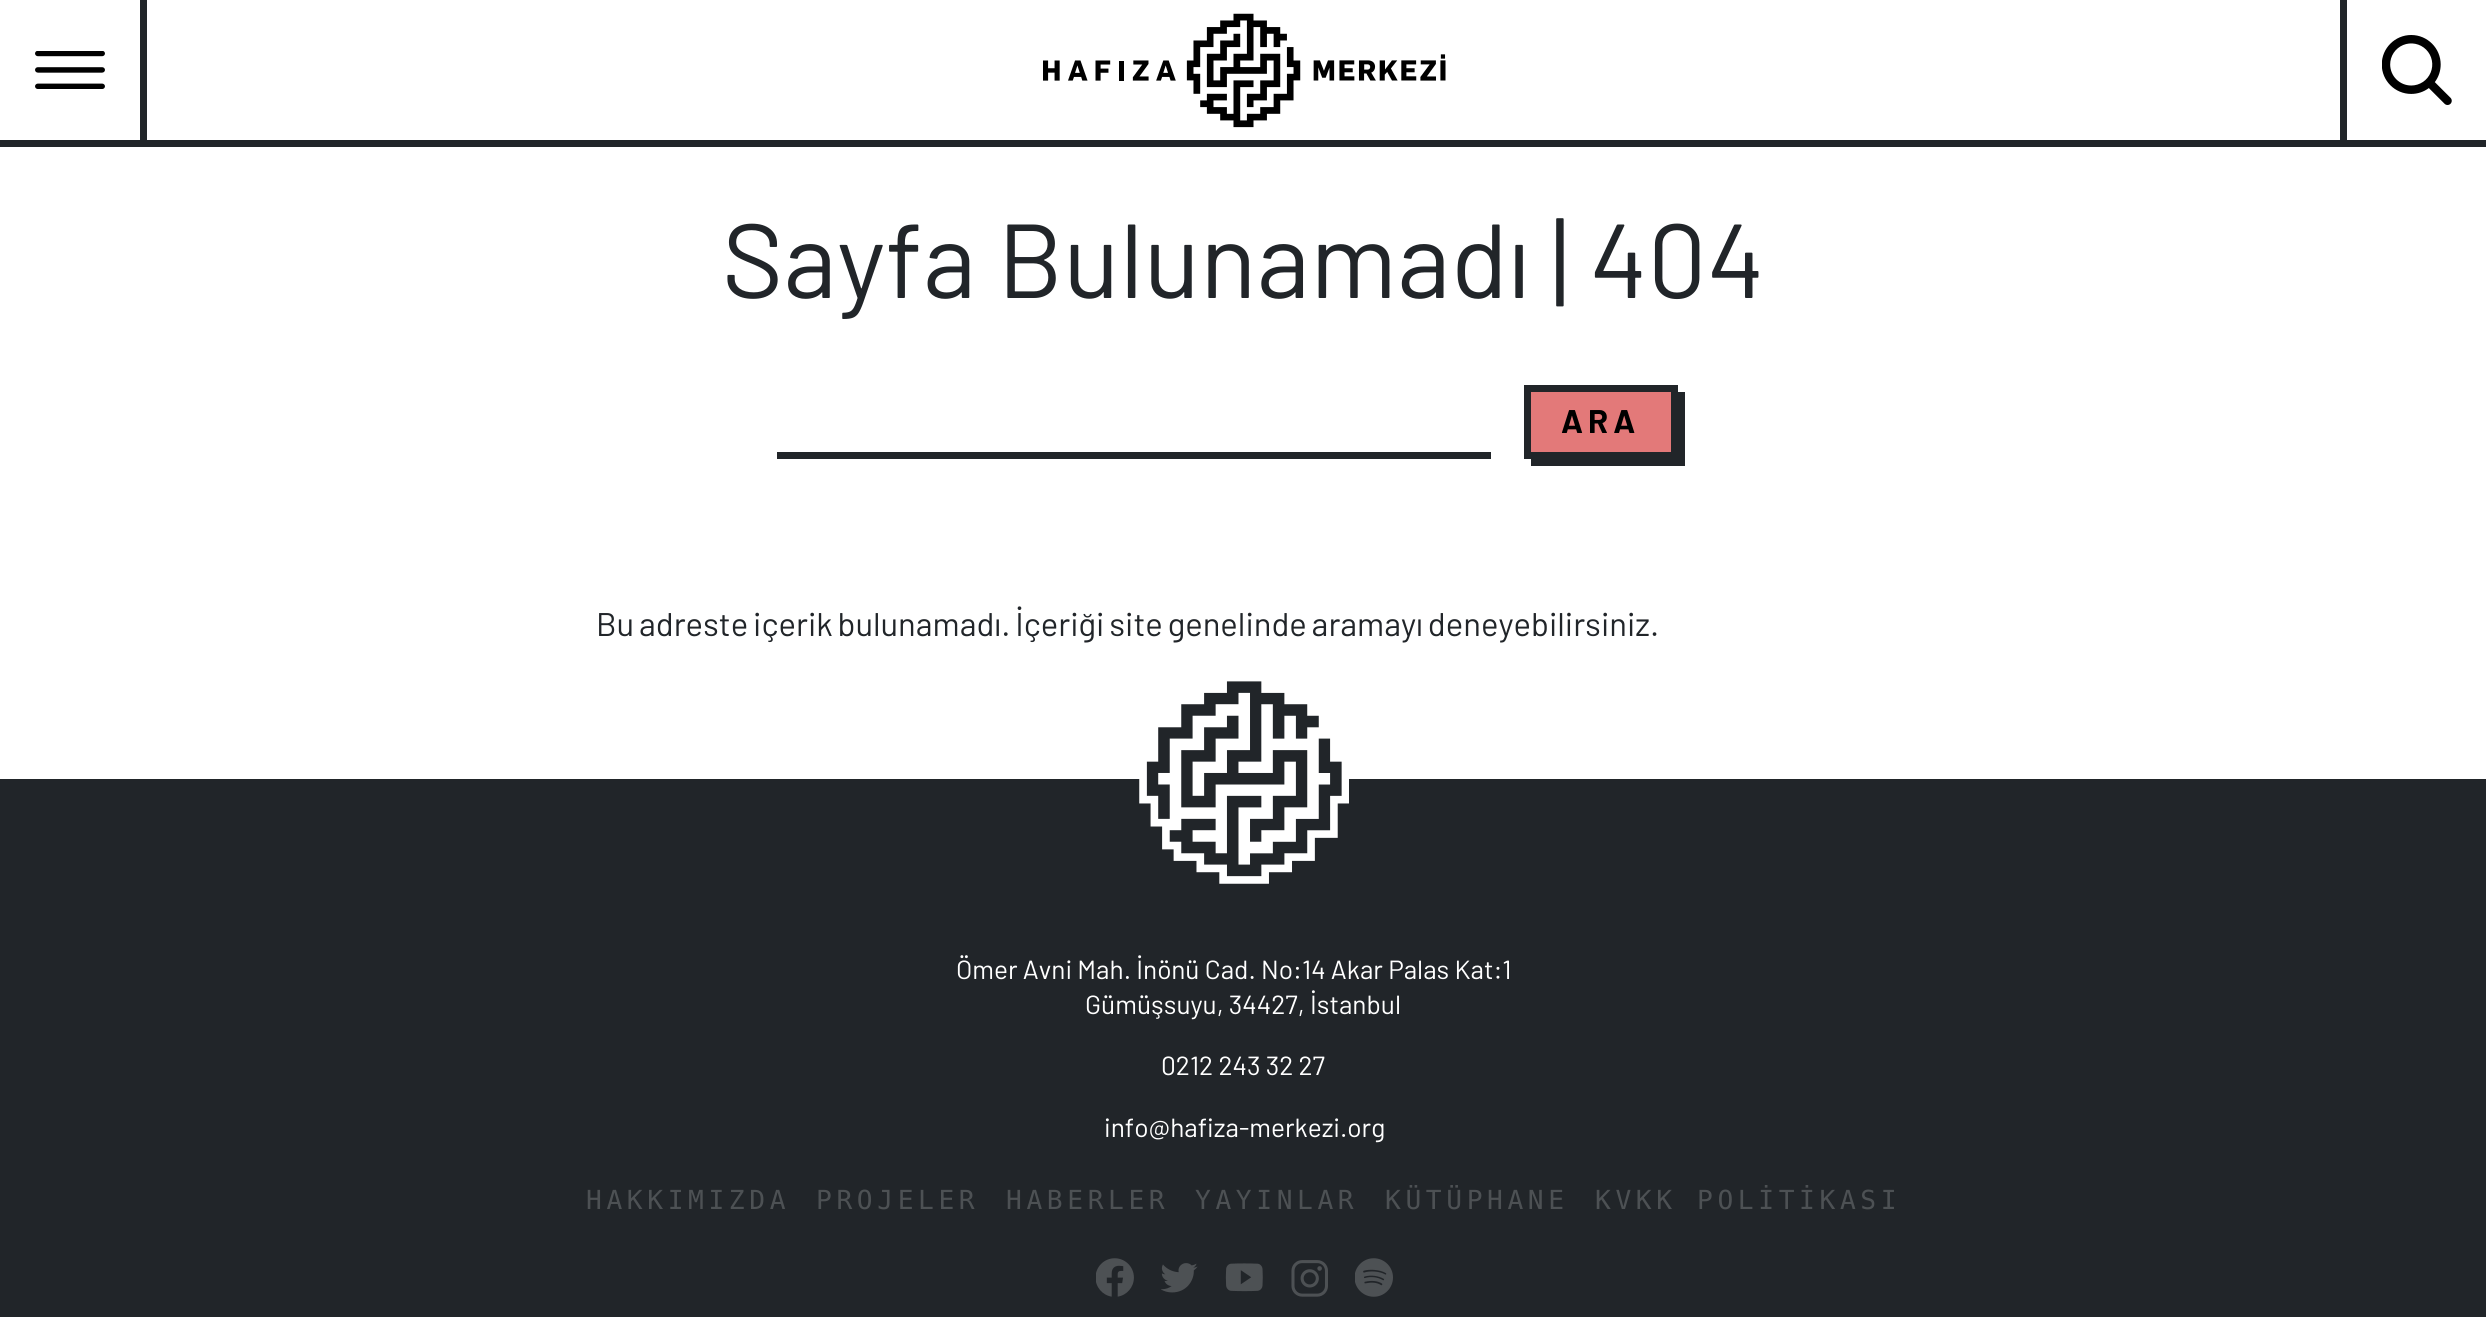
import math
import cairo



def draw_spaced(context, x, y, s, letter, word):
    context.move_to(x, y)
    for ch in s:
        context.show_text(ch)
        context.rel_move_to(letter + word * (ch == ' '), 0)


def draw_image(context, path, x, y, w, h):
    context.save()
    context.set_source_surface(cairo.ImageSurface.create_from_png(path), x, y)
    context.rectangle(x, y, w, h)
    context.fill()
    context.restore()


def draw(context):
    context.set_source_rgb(1, 1, 1)
    context.paint()
    context.rectangle(-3.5, -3.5, 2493, 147)
    context.set_source_rgb(33 / 255, 37 / 255, 41 / 255)
    context.set_line_width(7)
    context.stroke()
    context.rectangle(-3.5, -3.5, 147, 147)
    context.stroke()
    draw_image(context, "images/1.png", 35, 51, 70, 38)
    draw_image(context, "images/2.png", 1043, 13, 403, 115)
    context.rectangle(2343.5, -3.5, 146, 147)
    context.stroke()
    draw_image(context, "images/3.png", 2382, 35, 70, 70)
    context.new_path()
    context.move_to(1531, 392)
    context.line_to(1531, 466)
    context.line_to(1685, 466)
    context.line_to(1685, 392)
    context.line_to(1671, 392)
    context.line_to(1671, 452)
    context.line_to(1531, 452)
    context.close_path()
    context.fill()
    context.rectangle(1527.5, 388.5, 147, 67)
    context.stroke()
    context.set_source_rgb(227 / 255, 121 / 255, 121 / 255)
    context.rectangle(1531, 392, 140, 60)
    context.fill()
    context.set_source_rgb(33 / 255, 37 / 255, 41 / 255)
    context.rectangle(777, 452, 714, 7)
    context.fill()
    context.rectangle(0, 779, 2486, 538)
    context.fill()
    draw_image(context, "images/4.png", 1139, 681, 210, 203)
    draw_image(context, "images/5.png", 1096, 1258, 38, 39)
    draw_image(context, "images/6.png", 1161, 1263, 37, 30)
    draw_image(context, "images/7.png", 1225, 1263, 38, 29)
    draw_image(context, "images/8.png", 1291, 1260, 37, 37)
    draw_image(context, "images/9.png", 1355, 1258, 38, 39)
    context.select_font_face("Barlow")
    context.set_font_size(105)
    context.move_to(722, 298)
    context.show_text("Sayfa Bulunamadı | 404")
    context.select_font_face("Barlow", cairo.FontSlant.NORMAL, cairo.FontWeight.BOLD)
    context.set_font_size(32.8)
    context.set_source_rgb(0, 0, 0)
    draw_spaced(context, 1561, 433, "ARA", 5, 0)
    context.select_font_face("Barlow")
    context.set_source_rgb(33 / 255, 37 / 255, 41 / 255)
    draw_spaced(context, 596, 636, "Bu adreste içerik bulunamadı. İçeriği site genelinde aramayı deneyebilirsiniz.", 0, -1.75)
    context.set_font_size(26.25)
    context.set_source_rgb(1, 1, 1)
    context.move_to(956, 979)
    context.show_text("Ömer Avni Mah. İnönü Cad. No:14 Akar Palas Kat:1")
    context.move_to(1085, 1014)
    context.show_text("Gümüşsuyu, 34427, İstanbul")
    context.move_to(1161, 1075)
    context.show_text("0212 243 32 27")
    context.move_to(1104, 1137)
    context.show_text("info@hafiza-merkezi.org")
    context.select_font_face("DejaVu Sans Mono")
    context.set_source_rgb(77 / 255, 81 / 255, 84 / 255)
    draw_spaced(context, 586, 1209, "HAKKIMIZDA", 4.6, 0)
    draw_spaced(context, 816, 1209, "PROJELER", 4.6, 0)
    draw_spaced(context, 1006, 1209, "HABERLER", 4.6, 0)
    draw_spaced(context, 1195, 1209, "YAYINLAR", 4.6, 0)
    draw_spaced(context, 1385, 1209, "KÜTÜPHANE", 4.6, 0)
    draw_spaced(context, 1595, 1209, "KVKK POLİTİKASI", 4.6, 0)


surface = cairo.ImageSurface(cairo.Format.RGB24, 2486, 1317)
context = cairo.Context(surface)
options = cairo.FontOptions()
options.set_hint_metrics(cairo.HintMetrics.OFF)
options.set_hint_style(cairo.HintStyle.NONE)
context.set_font_options(options)
context.set_miter_limit(4)
draw(context)
surface.write_to_png("out.png")
